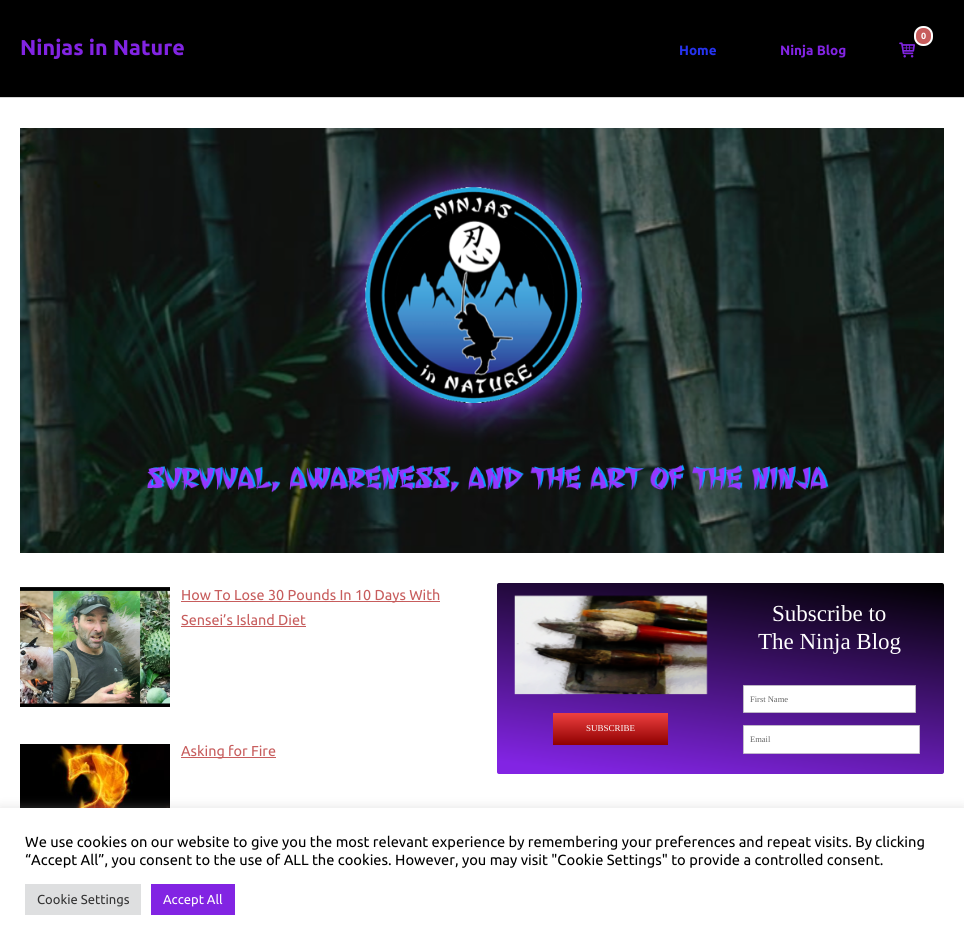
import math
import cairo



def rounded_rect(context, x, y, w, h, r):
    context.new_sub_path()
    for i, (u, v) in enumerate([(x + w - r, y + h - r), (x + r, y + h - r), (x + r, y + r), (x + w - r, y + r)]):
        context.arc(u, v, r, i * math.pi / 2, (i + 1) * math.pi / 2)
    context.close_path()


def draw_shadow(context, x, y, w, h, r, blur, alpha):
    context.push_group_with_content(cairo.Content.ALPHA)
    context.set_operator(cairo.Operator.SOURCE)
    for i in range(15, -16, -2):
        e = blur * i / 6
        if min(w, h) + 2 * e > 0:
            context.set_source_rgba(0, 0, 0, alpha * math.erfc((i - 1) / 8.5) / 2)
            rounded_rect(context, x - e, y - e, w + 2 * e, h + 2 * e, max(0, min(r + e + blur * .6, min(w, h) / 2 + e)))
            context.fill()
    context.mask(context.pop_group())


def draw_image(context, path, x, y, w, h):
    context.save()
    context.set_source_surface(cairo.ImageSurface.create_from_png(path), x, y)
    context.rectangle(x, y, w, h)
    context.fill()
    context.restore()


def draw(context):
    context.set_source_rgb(1, 1, 1)
    context.paint()
    context.set_source_rgb(0, 0, 0)
    context.rectangle(0, 0, 964, 97)
    context.fill()
    context.set_source_rgb(212 / 255, 212 / 255, 212 / 255)
    context.rectangle(0, 97, 964, 1)
    context.fill()
    draw_image(context, "images/1.png", 899, 42, 16, 16)
    context.set_source_rgb(199 / 255, 93 / 255, 93 / 255)
    rounded_rect(context, 915, 27, 17, 18, 8)
    context.fill_preserve()
    context.set_source_rgb(1, 1, 1)
    context.stroke()
    draw_image(context, "images/2.png", 20, 128, 924, 425)
    draw_image(context, "images/3.png", 20, 587, 150, 120)
    context.set_source_rgb(199 / 255, 93 / 255, 93 / 255)
    context.rectangle(181, 601, 259, 1)
    context.fill()
    context.rectangle(181, 626, 125, 1)
    context.fill()
    draw_image(context, "images/4.png", 20, 744, 150, 64)
    context.rectangle(181, 757, 95, 1)
    context.fill()
    gradient = cairo.LinearGradient(738, 554, 703, 803)
    gradient.add_color_stop_rgba(0, 0, 0, 0, 1)
    gradient.add_color_stop_rgba(0.95, 130 / 255, 36 / 255, 227 / 255, 1)
    context.set_source(gradient)
    rounded_rect(context, 497, 583, 447, 191, 2)
    context.fill()
    draw_image(context, "images/5.png", 514, 595, 194, 100)
    context.set_source_rgb(1, 1, 1)
    rounded_rect(context, 743.3, 685.3, 172.4, 27.4, 0.2)
    context.fill_preserve()
    context.set_source_rgb(187 / 255, 187 / 255, 187 / 255)
    context.set_line_width(0.6)
    context.stroke()
    gradient = cairo.LinearGradient(610, 713, 610, 745)
    gradient.add_color_stop_rgba(0, 239 / 255, 64 / 255, 64 / 255, 1)
    gradient.add_color_stop_rgba(1, 142 / 255, 0, 0, 1)
    context.set_source(gradient)
    context.rectangle(553, 713, 115, 32)
    context.fill()
    context.set_source_rgb(1, 1, 1)
    rounded_rect(context, 743.3, 725.3, 176.4, 28.4, 0.2)
    context.fill_preserve()
    context.set_source_rgb(187 / 255, 187 / 255, 187 / 255)
    context.stroke()
    context.set_source_rgb(172 / 255, 171 / 255, 171 / 255)
    draw_shadow(context, 0, 807, 964, 137, 0, 5, 0.3)
    context.set_source_rgb(1, 1, 1)
    context.rectangle(0, 808, 964, 137)
    context.fill()
    context.set_source_rgb(222 / 255, 223 / 255, 224 / 255)
    context.rectangle(25, 884, 116, 31)
    context.fill()
    context.set_source_rgb(130 / 255, 36 / 255, 227 / 255)
    context.rectangle(151, 884, 84, 31)
    context.fill()
    context.select_font_face("Ubuntu", cairo.FontSlant.NORMAL, cairo.FontWeight.BOLD)
    context.set_font_size(21.5)
    context.move_to(20, 55)
    context.show_text("Ninjas in Nature")
    context.set_font_size(9)
    context.set_source_rgb(1, 1, 1)
    context.move_to(921, 39)
    context.show_text("0")
    context.set_font_size(13.5)
    context.set_source_rgb(38 / 255, 51 / 255, 239 / 255)
    context.move_to(679, 55)
    context.show_text("Home")
    context.set_source_rgb(130 / 255, 36 / 255, 227 / 255)
    context.move_to(780, 55)
    context.show_text("Ninja Blog")
    context.select_font_face("Ubuntu")
    context.set_font_size(14.4)
    context.set_source_rgb(199 / 255, 93 / 255, 93 / 255)
    context.move_to(181, 600)
    context.show_text("How To Lose 30 Pounds In 10 Days With")
    context.move_to(181, 625)
    context.show_text("Sensei’s Island Diet")
    context.move_to(181, 756)
    context.show_text("Asking for Fire")
    context.select_font_face("Liberation Serif")
    context.set_font_size(23)
    context.set_source_rgb(1, 1, 1)
    context.move_to(772, 621)
    context.show_text("Subscribe to")
    context.move_to(758, 649)
    context.show_text("The Ninja Blog")
    context.set_font_size(8.5)
    context.set_source_rgb(102 / 255, 102 / 255, 102 / 255)
    context.move_to(750, 702)
    context.show_text("First Name")
    context.set_font_size(9)
    context.set_source_rgb(1, 1, 1)
    context.move_to(586, 731)
    context.show_text("SUBSCRIBE")
    context.set_font_size(8.5)
    context.set_source_rgb(102 / 255, 102 / 255, 102 / 255)
    context.move_to(750, 742)
    context.show_text("Email")
    context.select_font_face("Ubuntu")
    context.set_font_size(14.67)
    context.set_source_rgb(0, 0, 0)
    context.move_to(25, 847)
    context.show_text("We use cookies on our website to give you the most relevant experience by remembering your preferences and repeat visits. By clicking")
    context.move_to(25, 865)
    context.show_text("“Accept All”, you consent to the use of ALL the cookies. However, you may visit \"Cookie Settings\" to provide a controlled consent.")
    context.set_font_size(13)
    context.set_source_rgb(51 / 255, 51 / 255, 51 / 255)
    context.move_to(37, 904)
    context.show_text("Cookie Settings")
    context.set_source_rgb(1, 1, 1)
    context.move_to(163, 904)
    context.show_text("Accept All")


surface = cairo.ImageSurface(cairo.Format.RGB24, 964, 945)
context = cairo.Context(surface)
options = cairo.FontOptions()
options.set_hint_metrics(cairo.HintMetrics.OFF)
options.set_hint_style(cairo.HintStyle.NONE)
context.set_font_options(options)
context.set_miter_limit(4)
draw(context)
surface.write_to_png("out.png")
